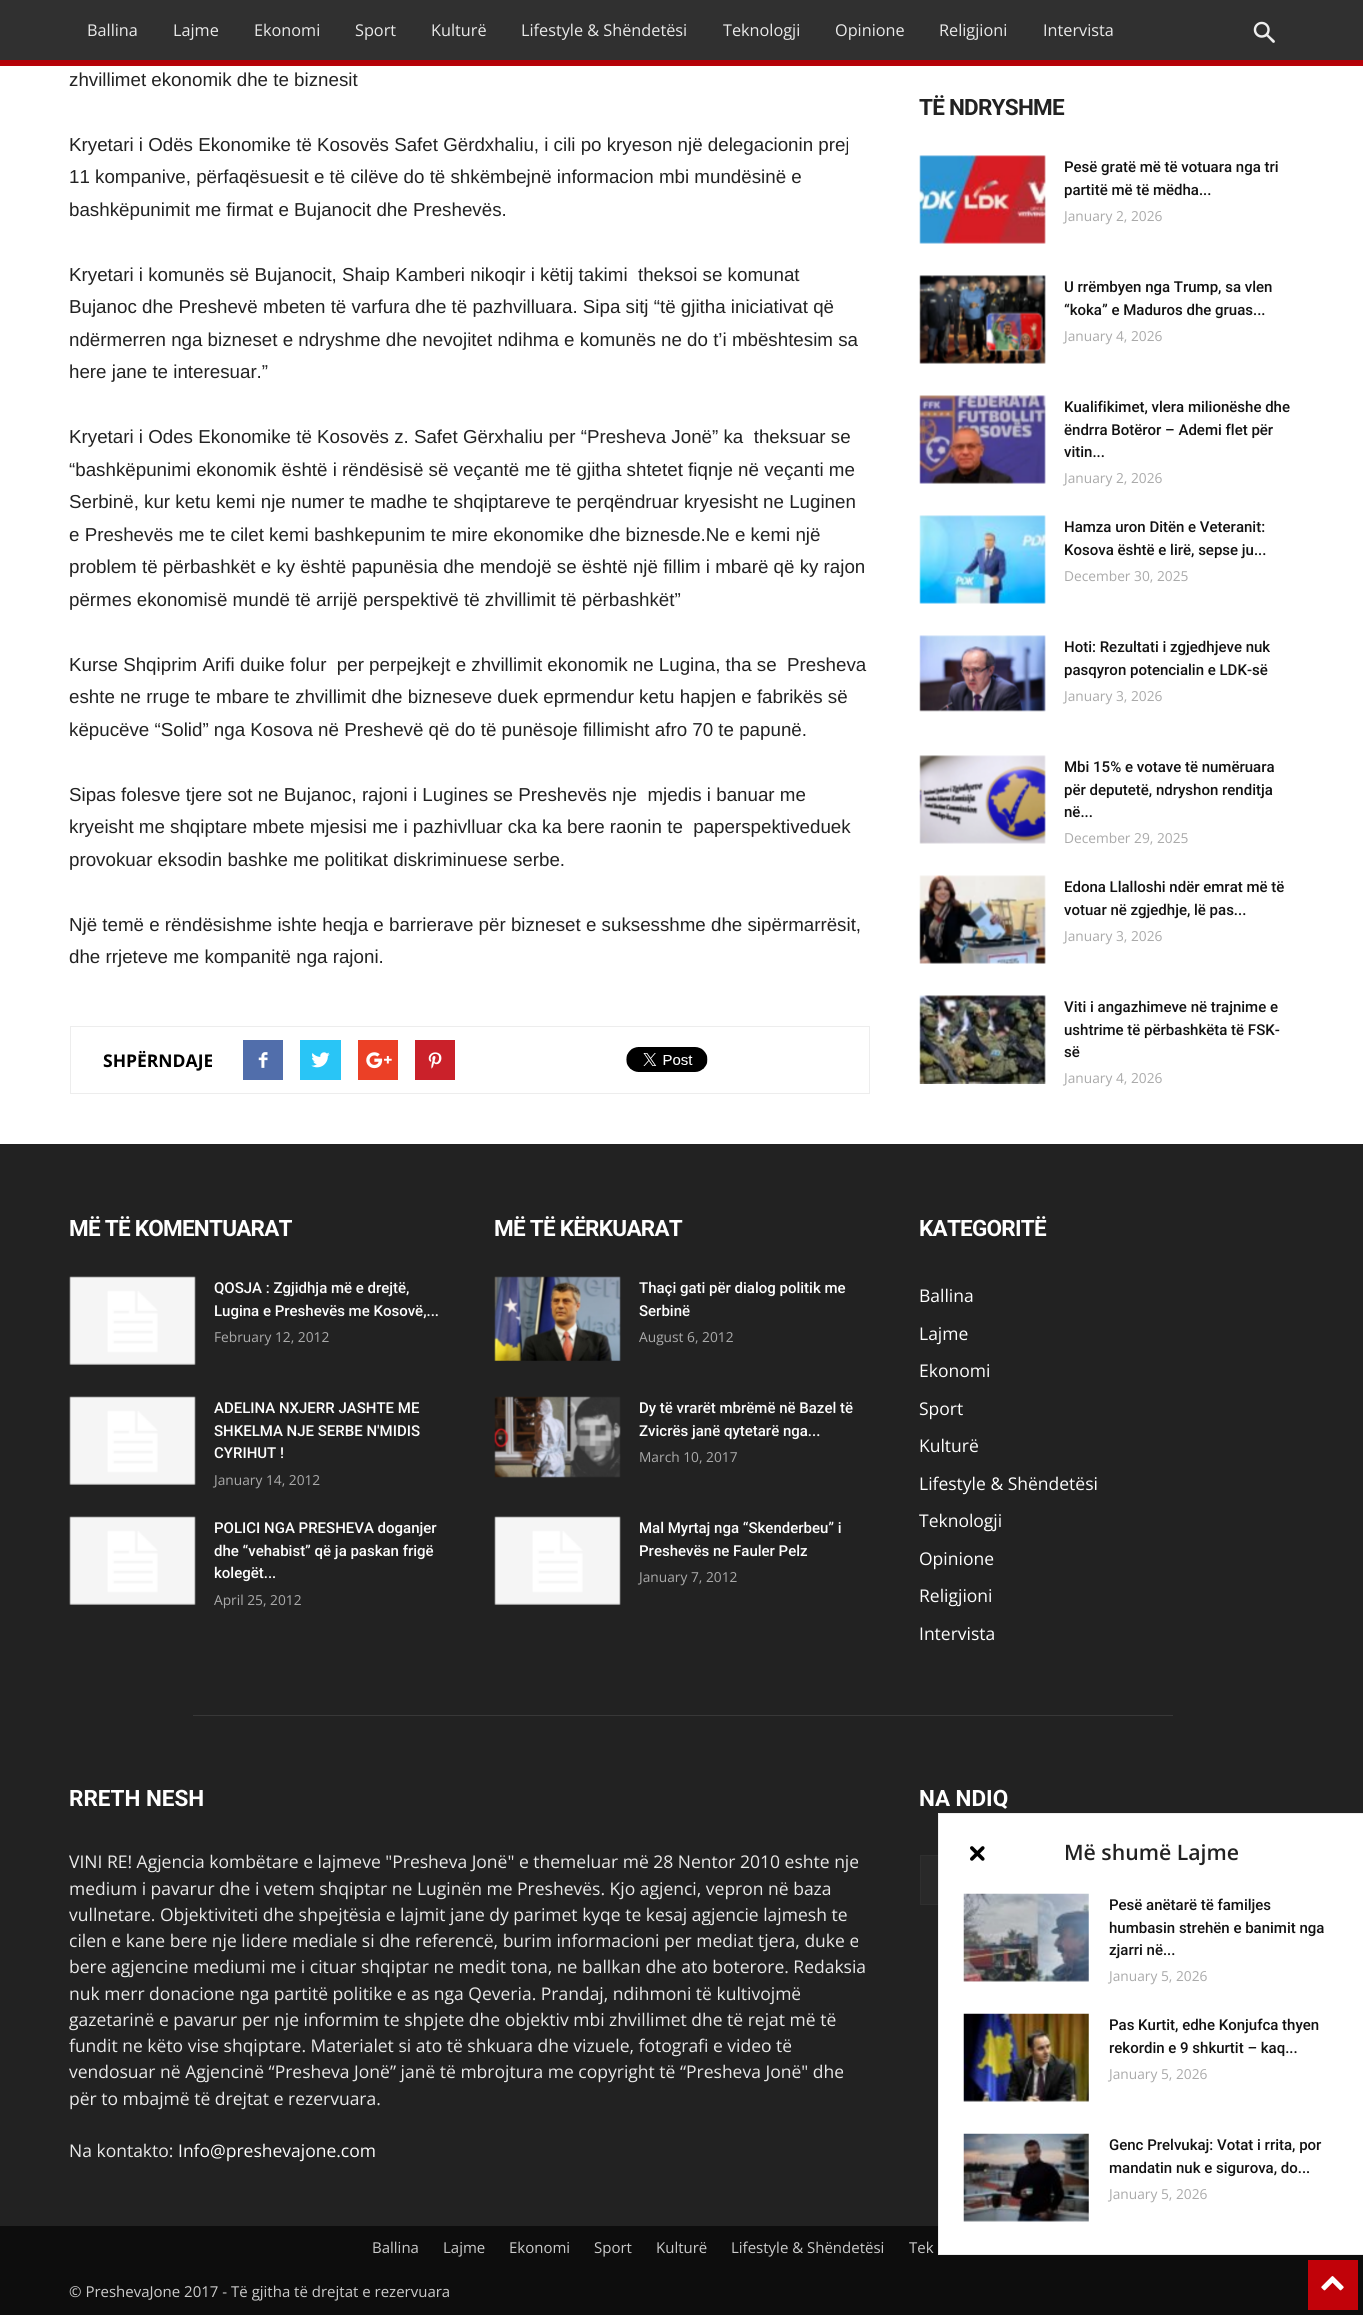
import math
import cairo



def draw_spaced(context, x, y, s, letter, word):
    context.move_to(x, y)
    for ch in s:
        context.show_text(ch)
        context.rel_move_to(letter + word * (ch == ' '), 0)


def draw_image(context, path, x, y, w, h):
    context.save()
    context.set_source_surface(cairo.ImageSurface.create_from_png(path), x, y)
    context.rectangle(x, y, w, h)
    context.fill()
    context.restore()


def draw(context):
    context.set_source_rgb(1, 1, 1)
    context.paint()
    context.set_source_rgb(48 / 255, 48 / 255, 48 / 255)
    context.rectangle(0, 0, 1363, 60)
    context.fill()
    draw_image(context, "images/1.png", 1253, 21, 22, 22)
    context.set_source_rgb(193 / 255, 2 / 255, 9 / 255)
    context.rectangle(0, 60, 1363, 6)
    context.fill()
    draw_image(context, "images/2.png", 0, 60, 1363, 6)
    context.rectangle(70.5, 1026.5, 799, 67)
    context.set_source_rgb(237 / 255, 237 / 255, 237 / 255)
    context.set_line_width(1)
    context.stroke()
    context.set_source_rgb(81 / 255, 110 / 255, 171 / 255)
    context.rectangle(243, 1040, 40, 40)
    context.fill()
    draw_image(context, "images/3.png", 258, 1052, 10, 16)
    context.set_source_rgb(41 / 255, 197 / 255, 246 / 255)
    context.rectangle(300, 1040, 41, 40)
    context.fill()
    draw_image(context, "images/4.png", 311, 1052, 19, 16)
    context.set_source_rgb(235 / 255, 64 / 255, 38 / 255)
    context.rectangle(358, 1040, 40, 40)
    context.fill()
    draw_image(context, "images/5.png", 366, 1052, 26, 17)
    context.set_source_rgb(202 / 255, 33 / 255, 42 / 255)
    context.rectangle(415, 1040, 40, 40)
    context.fill()
    draw_image(context, "images/6.png", 428, 1052, 14, 17)
    draw_image(context, "images/7.png", 626, 1047, 82, 25)
    draw_image(context, "images/8.png", 919, 155, 127, 89)
    draw_image(context, "images/9.png", 919, 275, 127, 89)
    draw_image(context, "images/10.png", 919, 395, 127, 89)
    draw_image(context, "images/11.png", 919, 515, 127, 89)
    draw_image(context, "images/12.png", 919, 635, 127, 77)
    draw_image(context, "images/13.png", 919, 755, 127, 89)
    draw_image(context, "images/14.png", 919, 875, 127, 89)
    draw_image(context, "images/15.png", 919, 995, 127, 89)
    context.set_source_rgb(34 / 255, 34 / 255, 34 / 255)
    context.rectangle(0, 1144, 1363, 1082)
    context.fill()
    draw_image(context, "images/16.png", 69, 1276, 127, 89)
    draw_image(context, "images/16.png", 69, 1396, 127, 89)
    draw_image(context, "images/17.png", 69, 1516, 127, 89)
    draw_image(context, "images/18.png", 494, 1276, 127, 85)
    draw_image(context, "images/19.png", 494, 1396, 127, 82)
    draw_image(context, "images/17.png", 494, 1516, 127, 89)
    context.set_source_rgb(56 / 255, 56 / 255, 56 / 255)
    context.rectangle(193, 1715, 980, 1)
    context.fill()
    context.set_source_rgb(41 / 255, 41 / 255, 41 / 255)
    context.rectangle(921, 1856, 17, 48)
    context.fill()
    context.rectangle(920.5, 1855.5, 49, 49)
    context.set_source_rgb(47 / 255, 47 / 255, 47 / 255)
    context.stroke()
    context.set_source_rgb(13 / 255, 13 / 255, 13 / 255)
    context.rectangle(0, 2226, 1363, 89)
    context.fill()
    context.set_source_rgb(1, 1, 1)
    context.rectangle(939, 1814, 424, 440)
    context.fill()
    context.set_source_rgb(237 / 255, 237 / 255, 237 / 255)
    context.rectangle(938, 1813, 425, 1)
    context.fill()
    context.rectangle(938, 2254, 425, 1)
    context.fill()
    context.rectangle(938, 1813, 1, 442)
    context.fill()
    draw_image(context, "images/20.png", 970, 1846, 15, 15)
    draw_image(context, "images/21.png", 963, 1893, 126, 89)
    draw_image(context, "images/22.png", 963, 2013, 126, 89)
    draw_image(context, "images/23.png", 963, 2133, 126, 89)
    context.set_source_rgb(193 / 255, 2 / 255, 9 / 255)
    context.rectangle(1308, 2260, 50, 50)
    context.fill()
    draw_image(context, "images/24.png", 1321, 2276, 23, 15)
    context.select_font_face("Open Sans")
    context.set_font_size(16.25)
    context.set_source_rgb(234 / 255, 234 / 255, 234 / 255)
    context.move_to(87, 36)
    context.show_text("Ballina")
    context.move_to(173, 36)
    context.show_text("Lajme")
    context.move_to(254, 36)
    context.show_text("Ekonomi")
    context.move_to(355, 36)
    context.show_text("Sport")
    context.move_to(431, 36)
    context.show_text("Kulturë")
    context.move_to(521, 36)
    context.show_text("Lifestyle & Shëndetësi")
    context.move_to(723, 36)
    context.show_text("Teknologji")
    context.move_to(835, 36)
    context.show_text("Opinione")
    context.move_to(939, 36)
    context.show_text("Religjioni")
    context.move_to(1043, 36)
    context.show_text("Intervista")
    context.select_font_face("Liberation Sans")
    context.set_font_size(18.75)
    context.set_source_rgb(34 / 255, 34 / 255, 34 / 255)
    context.move_to(69, 86)
    context.show_text("zhvillimet ekonomik dhe te biznesit")
    context.move_to(69, 151)
    context.show_text("Kryetari i Odës Ekonomike të Kosovës Safet Gërdxhaliu, i cili po kryeson një delegacionin prej")
    context.move_to(69, 183)
    context.show_text("11 kompanive, përfaqësuesit e të cilëve do të shkëmbejnë informacion mbi mundësinë e")
    context.move_to(69, 216)
    context.show_text("bashkëpunimit me firmat e Bujanocit dhe Preshevës.")
    context.move_to(69, 281)
    context.show_text("Kryetari i komunës së Bujanocit, Shaip Kamberi nikoqir i këtij takimi  theksoi se komunat")
    context.move_to(69, 313)
    context.show_text("Bujanoc dhe Preshevë mbeten të varfura dhe të pazhvilluara. Sipa sitj “të gjitha iniciativat që")
    context.move_to(69, 346)
    context.show_text("ndërmerren nga bizneset e ndryshme dhe nevojitet ndihma e komunës ne do t’i mbështesim sa")
    context.move_to(69, 378)
    context.show_text("here jane te interesuar.”")
    context.move_to(69, 443)
    context.show_text("Kryetari i Odes Ekonomike të Kosovës z. Safet Gërxhaliu per “Presheva Jonë” ka  theksuar se")
    context.move_to(69, 476)
    context.show_text("“bashkëpunimi ekonomik është i rëndësisë së veçantë me të gjitha shtetet fiqnje në veçanti me")
    context.move_to(69, 508)
    context.show_text("Serbinë, kur ketu kemi nje numer te madhe te shqiptareve te perqëndruar kryesisht ne Luginen")
    context.move_to(69, 541)
    context.show_text("e Preshevës me te cilet kemi bashkepunim te mire ekonomike dhe biznesde.Ne e kemi një")
    context.move_to(69, 573)
    context.show_text("problem të përbashkët e ky është papunësia dhe mendojë se është një fillim i mbarë që ky rajon")
    context.move_to(69, 606)
    context.show_text("përmes ekonomisë mundë të arrijë perspektivë të zhvillimit të përbashkët”")
    context.move_to(69, 671)
    context.show_text("Kurse Shqiprim Arifi duike folur  per perpejkejt e zhvillimit ekonomik ne Lugina, tha se  Presheva")
    context.move_to(69, 703)
    context.show_text("eshte ne rruge te mbare te zhvillimit dhe bizneseve duek eprmendur ketu hapjen e fabrikës së")
    context.move_to(69, 736)
    context.show_text("këpucëve “Solid” nga Kosova në Preshevë që do të punësoje fillimisht afro 70 te papunë.")
    context.move_to(69, 801)
    context.show_text("Sipas folesve tjere sot ne Bujanoc, rajoni i Lugines se Preshevës nje  mjedis i banuar me")
    context.move_to(69, 833)
    context.show_text("kryeisht me shqiptare mbete mjesisi me i pazhivlluar cka ka bere raonin te  paperspektiveduek")
    context.move_to(69, 866)
    context.show_text("provokuar eksodin bashke me politikat diskriminuese serbe.")
    context.move_to(69, 931)
    context.show_text("Një temë e rëndësishme ishte heqja e barrierave për bizneset e suksesshme dhe sipërmarrësit,")
    context.move_to(69, 963)
    context.show_text("dhe rrjeteve me kompanitë nga rajoni.")
    context.select_font_face("Open Sans", cairo.FontSlant.NORMAL, cairo.FontWeight.BOLD)
    context.set_font_size(17.5)
    context.set_source_rgb(0, 0, 0)
    context.move_to(103, 1067)
    context.show_text("SHPËRNDAJE")
    context.select_font_face("Roboto", cairo.FontSlant.NORMAL, cairo.FontWeight.BOLD)
    context.set_font_size(22.5)
    context.set_source_rgb(34 / 255, 34 / 255, 34 / 255)
    draw_spaced(context, 919, 115, "TË NDRYSHME", -0.75, 0)
    context.select_font_face("Roboto Medium")
    context.set_font_size(15)
    context.set_source_rgb(17 / 255, 17 / 255, 17 / 255)
    context.move_to(1064, 172)
    context.show_text("Pesë gratë më të votuara nga tri")
    context.move_to(1064, 195)
    context.show_text("partitë më të mëdha...")
    context.select_font_face("Open Sans")
    context.set_font_size(13.75)
    context.set_source_rgb(170 / 255, 170 / 255, 170 / 255)
    context.move_to(1064, 221)
    context.show_text("January 2, 2026")
    context.select_font_face("Roboto Medium")
    context.set_font_size(15)
    context.set_source_rgb(17 / 255, 17 / 255, 17 / 255)
    context.move_to(1064, 292)
    context.show_text("U rrëmbyen nga Trump, sa vlen")
    context.move_to(1064, 315)
    context.show_text("“koka” e Maduros dhe gruas...")
    context.select_font_face("Open Sans")
    context.set_font_size(13.75)
    context.set_source_rgb(170 / 255, 170 / 255, 170 / 255)
    context.move_to(1064, 341)
    context.show_text("January 4, 2026")
    context.select_font_face("Roboto Medium")
    context.set_font_size(15)
    context.set_source_rgb(17 / 255, 17 / 255, 17 / 255)
    context.move_to(1064, 412)
    context.show_text("Kualifikimet, vlera milionëshe dhe")
    context.move_to(1064, 435)
    context.show_text("ëndrra Botëror – Ademi flet për")
    context.move_to(1064, 457)
    context.show_text("vitin...")
    context.select_font_face("Open Sans")
    context.set_font_size(13.75)
    context.set_source_rgb(170 / 255, 170 / 255, 170 / 255)
    context.move_to(1064, 483)
    context.show_text("January 2, 2026")
    context.select_font_face("Roboto Medium")
    context.set_font_size(15)
    context.set_source_rgb(17 / 255, 17 / 255, 17 / 255)
    context.move_to(1064, 532)
    context.show_text("Hamza uron Ditën e Veteranit:")
    context.move_to(1064, 555)
    context.show_text("Kosova është e lirë, sepse ju...")
    context.select_font_face("Open Sans")
    context.set_font_size(13.75)
    context.set_source_rgb(170 / 255, 170 / 255, 170 / 255)
    context.move_to(1064, 581)
    context.show_text("December 30, 2025")
    context.select_font_face("Roboto Medium")
    context.set_font_size(15)
    context.set_source_rgb(17 / 255, 17 / 255, 17 / 255)
    context.move_to(1064, 652)
    context.show_text("Hoti: Rezultati i zgjedhjeve nuk")
    context.move_to(1064, 675)
    context.show_text("pasqyron potencialin e LDK-së")
    context.select_font_face("Open Sans")
    context.set_font_size(13.75)
    context.set_source_rgb(170 / 255, 170 / 255, 170 / 255)
    context.move_to(1064, 701)
    context.show_text("January 3, 2026")
    context.select_font_face("Roboto Medium")
    context.set_font_size(15)
    context.set_source_rgb(17 / 255, 17 / 255, 17 / 255)
    context.move_to(1064, 772)
    context.show_text("Mbi 15% e votave të numëruara")
    context.move_to(1064, 795)
    context.show_text("për deputetë, ndryshon renditja")
    context.move_to(1064, 817)
    context.show_text("në...")
    context.select_font_face("Open Sans")
    context.set_font_size(13.75)
    context.set_source_rgb(170 / 255, 170 / 255, 170 / 255)
    context.move_to(1064, 843)
    context.show_text("December 29, 2025")
    context.select_font_face("Roboto Medium")
    context.set_font_size(15)
    context.set_source_rgb(17 / 255, 17 / 255, 17 / 255)
    context.move_to(1064, 892)
    context.show_text("Edona Llalloshi ndër emrat më të")
    context.move_to(1064, 915)
    context.show_text("votuar në zgjedhje, lë pas...")
    context.select_font_face("Open Sans")
    context.set_font_size(13.75)
    context.set_source_rgb(170 / 255, 170 / 255, 170 / 255)
    context.move_to(1064, 941)
    context.show_text("January 3, 2026")
    context.select_font_face("Roboto Medium")
    context.set_font_size(15)
    context.set_source_rgb(17 / 255, 17 / 255, 17 / 255)
    context.move_to(1064, 1012)
    context.show_text("Viti i angazhimeve në trajnime e")
    context.move_to(1064, 1035)
    context.show_text("ushtrime të përbashkëta të FSK-")
    context.move_to(1064, 1057)
    context.show_text("së")
    context.select_font_face("Open Sans")
    context.set_font_size(13.75)
    context.set_source_rgb(170 / 255, 170 / 255, 170 / 255)
    context.move_to(1064, 1083)
    context.show_text("January 4, 2026")
    context.select_font_face("Roboto", cairo.FontSlant.NORMAL, cairo.FontWeight.BOLD)
    context.set_font_size(22.5)
    context.set_source_rgb(1, 1, 1)
    draw_spaced(context, 69, 1236, "MË TË KOMENTUARAT", -0.75, 0)
    context.select_font_face("Roboto Medium")
    context.set_font_size(15)
    context.move_to(214, 1293)
    context.show_text("QOSJA : Zgjidhja më e drejtë,")
    context.move_to(214, 1316)
    context.show_text("Lugina e Preshevës me Kosovë,...")
    context.select_font_face("Open Sans")
    context.set_font_size(13.75)
    context.set_source_rgb(170 / 255, 170 / 255, 170 / 255)
    context.move_to(214, 1342)
    context.show_text("February 12, 2012")
    context.select_font_face("Roboto Medium")
    context.set_font_size(15)
    context.set_source_rgb(1, 1, 1)
    context.move_to(214, 1413)
    context.show_text("ADELINA NXJERR JASHTE ME")
    context.move_to(214, 1436)
    context.show_text("SHKELMA NJE SERBE N'MIDIS")
    context.move_to(214, 1458)
    context.show_text("CYRIHUT !")
    context.select_font_face("Open Sans")
    context.set_font_size(13.75)
    context.set_source_rgb(170 / 255, 170 / 255, 170 / 255)
    context.move_to(214, 1485)
    context.show_text("January 14, 2012")
    context.select_font_face("Roboto Medium")
    context.set_font_size(15)
    context.set_source_rgb(1, 1, 1)
    context.move_to(214, 1533)
    context.show_text("POLICI NGA PRESHEVA doganjer")
    context.move_to(214, 1556)
    context.show_text("dhe “vehabist” që ja paskan frigë")
    context.move_to(214, 1578)
    context.show_text("kolegët...")
    context.select_font_face("Open Sans")
    context.set_font_size(13.75)
    context.set_source_rgb(170 / 255, 170 / 255, 170 / 255)
    context.move_to(214, 1605)
    context.show_text("April 25, 2012")
    context.select_font_face("Roboto", cairo.FontSlant.NORMAL, cairo.FontWeight.BOLD)
    context.set_font_size(22.5)
    context.set_source_rgb(1, 1, 1)
    draw_spaced(context, 494, 1236, "MË TË KËRKUARAT", -0.75, 0)
    context.select_font_face("Roboto Medium")
    context.set_font_size(15)
    context.move_to(639, 1293)
    context.show_text("Thaçi gati për dialog politik me")
    context.move_to(639, 1316)
    context.show_text("Serbinë")
    context.select_font_face("Open Sans")
    context.set_font_size(13.75)
    context.set_source_rgb(170 / 255, 170 / 255, 170 / 255)
    context.move_to(639, 1342)
    context.show_text("August 6, 2012")
    context.select_font_face("Roboto Medium")
    context.set_font_size(15)
    context.set_source_rgb(1, 1, 1)
    context.move_to(639, 1413)
    context.show_text("Dy të vrarët mbrëmë në Bazel të")
    context.move_to(639, 1436)
    context.show_text("Zvicrës janë qytetarë nga...")
    context.select_font_face("Open Sans")
    context.set_font_size(13.75)
    context.set_source_rgb(170 / 255, 170 / 255, 170 / 255)
    context.move_to(639, 1462)
    context.show_text("March 10, 2017")
    context.select_font_face("Roboto Medium")
    context.set_font_size(15)
    context.set_source_rgb(1, 1, 1)
    context.move_to(639, 1533)
    context.show_text("Mal Myrtaj nga “Skenderbeu” i")
    context.move_to(639, 1556)
    context.show_text("Preshevës ne Fauler Pelz")
    context.select_font_face("Open Sans")
    context.set_font_size(13.75)
    context.set_source_rgb(170 / 255, 170 / 255, 170 / 255)
    context.move_to(639, 1582)
    context.show_text("January 7, 2012")
    context.select_font_face("Roboto", cairo.FontSlant.NORMAL, cairo.FontWeight.BOLD)
    context.set_font_size(22.5)
    context.set_source_rgb(1, 1, 1)
    draw_spaced(context, 919, 1236, "KATEGORITË", -0.75, 0)
    context.select_font_face("Open Sans")
    context.set_font_size(17.5)
    context.move_to(919, 1302)
    context.show_text("Ballina")
    context.move_to(919, 1340)
    context.show_text("Lajme")
    context.move_to(919, 1377)
    context.show_text("Ekonomi")
    context.move_to(919, 1415)
    context.show_text("Sport")
    context.move_to(919, 1452)
    context.show_text("Kulturë")
    context.move_to(919, 1490)
    context.show_text("Lifestyle & Shëndetësi")
    context.move_to(919, 1527)
    context.show_text("Teknologji")
    context.move_to(919, 1565)
    context.show_text("Opinione")
    context.move_to(919, 1602)
    context.show_text("Religjioni")
    context.move_to(919, 1640)
    context.show_text("Intervista")
    context.select_font_face("Roboto", cairo.FontSlant.NORMAL, cairo.FontWeight.BOLD)
    context.set_font_size(22.5)
    context.move_to(69, 1806)
    context.show_text("RRETH NESH")
    context.select_font_face("Open Sans")
    context.set_font_size(17.5)
    context.set_source_rgb(234 / 255, 234 / 255, 234 / 255)
    context.move_to(69, 1868)
    context.show_text("VINI RE! Agjencia kombëtare e lajmeve \"Presheva Jonë\" e themeluar më 28 Nentor 2010 eshte nje")
    context.move_to(69, 1895)
    context.show_text("medium i pavarur dhe i vetem shqiptar ne Luginën me Preshevës. Kjo agjenci, vepron në baza")
    context.move_to(69, 1921)
    context.show_text("vullnetare. Objektiviteti dhe shpejtësia e lajmit jane dy parimet kyqe te kesaj agjencie lajmesh te")
    context.move_to(69, 1947)
    context.show_text("cilen e kane bere nje lidere mediale si dhe referencë, burim informacioni per mediat tjera, duke e")
    context.move_to(69, 1973)
    context.show_text("bere agjencine mediumi me i cituar shqiptar ne medit tona, ne ballkan dhe ato boterore. Redaksia")
    context.move_to(69, 2000)
    context.show_text("nuk merr donacione nga partitë politike e as nga Qeveria. Prandaj, ndihmoni të kultivojmë")
    context.move_to(69, 2026)
    context.show_text("gazetarinë e pavarur per nje informim te shpjete dhe objektiv mbi zhvillimet dhe të rejat më të")
    context.move_to(69, 2052)
    context.show_text("fundit ne këto vise shqiptare. Materialet si ato të shkuara dhe vizuele, fotografi e video të")
    context.move_to(69, 2078)
    context.show_text("vendosuar në Agjencinë “Presheva Jonë” janë të mbrojtura me copyright të “Presheva Jonë\" dhe")
    context.move_to(69, 2105)
    context.show_text("për to mbajmë të drejtat e rezervuara.")
    context.move_to(69, 2157)
    context.show_text("Na kontakto:")
    context.set_source_rgb(1, 1, 1)
    context.move_to(178, 2157)
    context.show_text("Info@preshevajone.com")
    context.select_font_face("Roboto", cairo.FontSlant.NORMAL, cairo.FontWeight.BOLD)
    context.set_font_size(22.5)
    context.move_to(919, 1806)
    context.show_text("NA NDIQ")
    context.select_font_face("Open Sans")
    context.set_font_size(15)
    context.set_source_rgb(204 / 255, 204 / 255, 204 / 255)
    context.move_to(372, 2253)
    context.show_text("Ballina")
    context.move_to(443, 2253)
    context.show_text("Lajme")
    context.move_to(509, 2253)
    context.show_text("Ekonomi")
    context.move_to(594, 2253)
    context.show_text("Sport")
    context.move_to(656, 2253)
    context.show_text("Kulturë")
    context.move_to(731, 2253)
    context.show_text("Lifestyle & Shëndetësi")
    context.move_to(909, 2253)
    context.show_text("Tek")
    context.move_to(69, 2297)
    context.show_text("© PreshevaJone 2017 - Të gjitha të drejtat e rezervuara")
    context.select_font_face("Open Sans SemiBold")
    context.set_font_size(21.25)
    context.set_source_rgb(34 / 255, 34 / 255, 34 / 255)
    context.move_to(1064, 1860)
    context.show_text("Më shumë Lajme")
    context.select_font_face("Roboto Medium")
    context.set_font_size(15)
    context.set_source_rgb(17 / 255, 17 / 255, 17 / 255)
    context.move_to(1109, 1910)
    context.show_text("Pesë anëtarë të familjes")
    context.move_to(1109, 1933)
    context.show_text("humbasin strehën e banimit nga")
    context.move_to(1109, 1955)
    context.show_text("zjarri në...")
    context.select_font_face("Open Sans")
    context.set_font_size(13.75)
    context.set_source_rgb(170 / 255, 170 / 255, 170 / 255)
    context.move_to(1109, 1981)
    context.show_text("January 5, 2026")
    context.select_font_face("Roboto Medium")
    context.set_font_size(15)
    context.set_source_rgb(17 / 255, 17 / 255, 17 / 255)
    context.move_to(1109, 2030)
    context.show_text("Pas Kurtit, edhe Konjufca thyen")
    context.move_to(1109, 2053)
    context.show_text("rekordin e 9 shkurtit – kaq...")
    context.select_font_face("Open Sans")
    context.set_font_size(13.75)
    context.set_source_rgb(170 / 255, 170 / 255, 170 / 255)
    context.move_to(1109, 2079)
    context.show_text("January 5, 2026")
    context.select_font_face("Roboto Medium")
    context.set_font_size(15)
    context.set_source_rgb(17 / 255, 17 / 255, 17 / 255)
    context.move_to(1109, 2150)
    context.show_text("Genc Prelvukaj: Votat i rrita, por")
    context.move_to(1109, 2173)
    context.show_text("mandatin nuk e sigurova, do...")
    context.select_font_face("Open Sans")
    context.set_font_size(13.75)
    context.set_source_rgb(170 / 255, 170 / 255, 170 / 255)
    context.move_to(1109, 2199)
    context.show_text("January 5, 2026")


surface = cairo.ImageSurface(cairo.Format.RGB24, 1363, 2315)
context = cairo.Context(surface)
options = cairo.FontOptions()
options.set_hint_metrics(cairo.HintMetrics.OFF)
options.set_hint_style(cairo.HintStyle.NONE)
context.set_font_options(options)
context.set_miter_limit(4)
draw(context)
surface.write_to_png("out.png")
